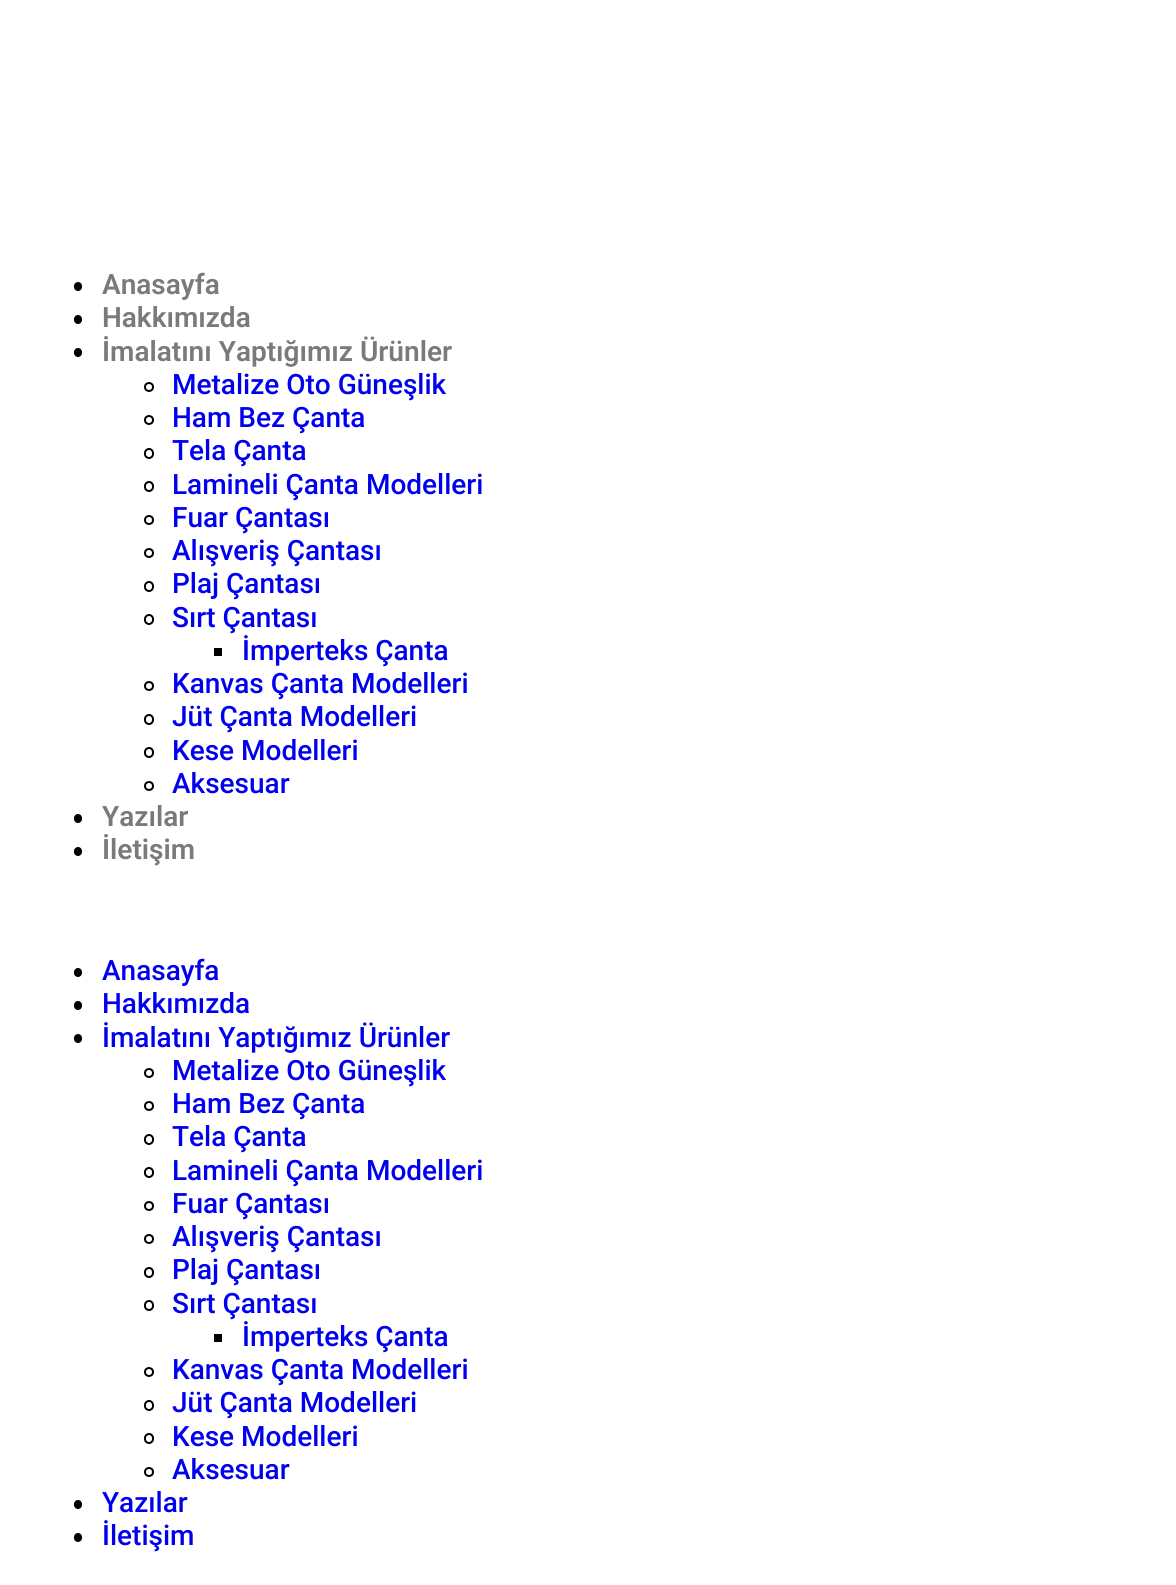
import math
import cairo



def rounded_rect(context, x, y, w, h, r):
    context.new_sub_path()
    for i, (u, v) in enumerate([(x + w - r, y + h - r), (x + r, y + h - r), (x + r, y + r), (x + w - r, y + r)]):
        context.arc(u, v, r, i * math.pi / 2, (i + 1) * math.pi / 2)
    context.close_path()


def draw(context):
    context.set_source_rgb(1, 1, 1)
    context.paint()
    context.set_source_rgb(0, 0, 0)
    rounded_rect(context, 74, 282, 8, 9, 4)
    context.fill()
    rounded_rect(context, 74, 315, 8, 9, 4)
    context.fill()
    rounded_rect(context, 74, 348, 8, 9, 4)
    context.fill()
    context.arc(149, 387, 4, 0, 2 * math.pi)
    context.stroke()
    context.arc(149, 420, 4, 0, 2 * math.pi)
    context.stroke()
    rounded_rect(context, 145, 449, 8, 9, 4)
    context.stroke()
    rounded_rect(context, 145, 482, 8, 9, 4)
    context.stroke()
    context.arc(149, 520, 4, 0, 2 * math.pi)
    context.stroke()
    context.arc(149, 553, 4, 0, 2 * math.pi)
    context.stroke()
    rounded_rect(context, 145, 582, 8, 9, 4)
    context.stroke()
    rounded_rect(context, 145, 615, 8, 9, 4)
    context.stroke()
    context.rectangle(214, 648, 8, 8)
    context.fill()
    context.arc(149, 686, 4, 0, 2 * math.pi)
    context.stroke()
    rounded_rect(context, 145, 715, 8, 9, 4)
    context.stroke()
    rounded_rect(context, 145, 748, 8, 9, 4)
    context.stroke()
    context.arc(149, 786, 4, 0, 2 * math.pi)
    context.stroke()
    rounded_rect(context, 74, 814, 8, 9, 4)
    context.fill()
    rounded_rect(context, 74, 847, 8, 9, 4)
    context.fill()
    rounded_rect(context, 74, 968, 8, 9, 4)
    context.fill()
    rounded_rect(context, 74, 1001, 8, 9, 4)
    context.fill()
    rounded_rect(context, 74, 1034, 8, 9, 4)
    context.fill()
    context.arc(149, 1073, 4, 0, 2 * math.pi)
    context.stroke()
    context.arc(149, 1106, 4, 0, 2 * math.pi)
    context.stroke()
    rounded_rect(context, 145, 1135, 8, 9, 4)
    context.stroke()
    rounded_rect(context, 145, 1168, 8, 9, 4)
    context.stroke()
    context.arc(149, 1206, 4, 0, 2 * math.pi)
    context.stroke()
    context.arc(149, 1239, 4, 0, 2 * math.pi)
    context.stroke()
    rounded_rect(context, 145, 1268, 8, 9, 4)
    context.stroke()
    rounded_rect(context, 145, 1301, 8, 9, 4)
    context.stroke()
    context.rectangle(214, 1334, 8, 8)
    context.fill()
    context.arc(149, 1372, 4, 0, 2 * math.pi)
    context.stroke()
    rounded_rect(context, 145, 1401, 8, 9, 4)
    context.stroke()
    rounded_rect(context, 145, 1434, 8, 9, 4)
    context.stroke()
    context.arc(149, 1472, 4, 0, 2 * math.pi)
    context.stroke()
    rounded_rect(context, 74, 1500, 8, 9, 4)
    context.fill()
    rounded_rect(context, 74, 1533, 8, 9, 4)
    context.fill()
    context.select_font_face("Roboto SemiBold")
    context.set_font_size(28)
    context.set_source_rgb(122 / 255, 122 / 255, 122 / 255)
    context.move_to(102, 294)
    context.show_text("Anasayfa")
    context.move_to(102, 327)
    context.show_text("Hakkımızda")
    context.move_to(102, 361)
    context.show_text("İmalatını Yaptığımız Ürünler")
    context.select_font_face("Roboto Medium")
    context.set_source_rgb(0, 0, 238 / 255)
    context.move_to(172, 394)
    context.show_text("Metalize Oto Güneşlik")
    context.move_to(172, 427)
    context.show_text("Ham Bez Çanta")
    context.move_to(172, 460)
    context.show_text("Tela Çanta")
    context.move_to(172, 494)
    context.show_text("Lamineli Çanta Modelleri")
    context.move_to(172, 527)
    context.show_text("Fuar Çantası")
    context.move_to(172, 560)
    context.show_text("Alışveriş Çantası")
    context.move_to(172, 593)
    context.show_text("Plaj Çantası")
    context.move_to(172, 627)
    context.show_text("Sırt Çantası")
    context.move_to(242, 660)
    context.show_text("İmperteks Çanta")
    context.move_to(172, 693)
    context.show_text("Kanvas Çanta Modelleri")
    context.move_to(172, 726)
    context.show_text("Jüt Çanta Modelleri")
    context.move_to(172, 760)
    context.show_text("Kese Modelleri")
    context.move_to(172, 793)
    context.show_text("Aksesuar")
    context.select_font_face("Roboto SemiBold")
    context.set_source_rgb(122 / 255, 122 / 255, 122 / 255)
    context.move_to(102, 826)
    context.show_text("Yazılar")
    context.move_to(102, 859)
    context.show_text("İletişim")
    context.select_font_face("Roboto Medium")
    context.set_source_rgb(0, 0, 238 / 255)
    context.move_to(102, 980)
    context.show_text("Anasayfa")
    context.move_to(102, 1013)
    context.show_text("Hakkımızda")
    context.move_to(102, 1047)
    context.show_text("İmalatını Yaptığımız Ürünler")
    context.move_to(172, 1080)
    context.show_text("Metalize Oto Güneşlik")
    context.move_to(172, 1113)
    context.show_text("Ham Bez Çanta")
    context.move_to(172, 1146)
    context.show_text("Tela Çanta")
    context.move_to(172, 1180)
    context.show_text("Lamineli Çanta Modelleri")
    context.move_to(172, 1213)
    context.show_text("Fuar Çantası")
    context.move_to(172, 1246)
    context.show_text("Alışveriş Çantası")
    context.move_to(172, 1279)
    context.show_text("Plaj Çantası")
    context.move_to(172, 1313)
    context.show_text("Sırt Çantası")
    context.move_to(242, 1346)
    context.show_text("İmperteks Çanta")
    context.move_to(172, 1379)
    context.show_text("Kanvas Çanta Modelleri")
    context.move_to(172, 1412)
    context.show_text("Jüt Çanta Modelleri")
    context.move_to(172, 1446)
    context.show_text("Kese Modelleri")
    context.move_to(172, 1479)
    context.show_text("Aksesuar")
    context.move_to(102, 1512)
    context.show_text("Yazılar")
    context.move_to(102, 1545)
    context.show_text("İletişim")


surface = cairo.ImageSurface(cairo.Format.RGB24, 1176, 1585)
context = cairo.Context(surface)
options = cairo.FontOptions()
options.set_hint_metrics(cairo.HintMetrics.OFF)
options.set_hint_style(cairo.HintStyle.NONE)
context.set_font_options(options)
context.set_miter_limit(4)
draw(context)
surface.write_to_png("out.png")
